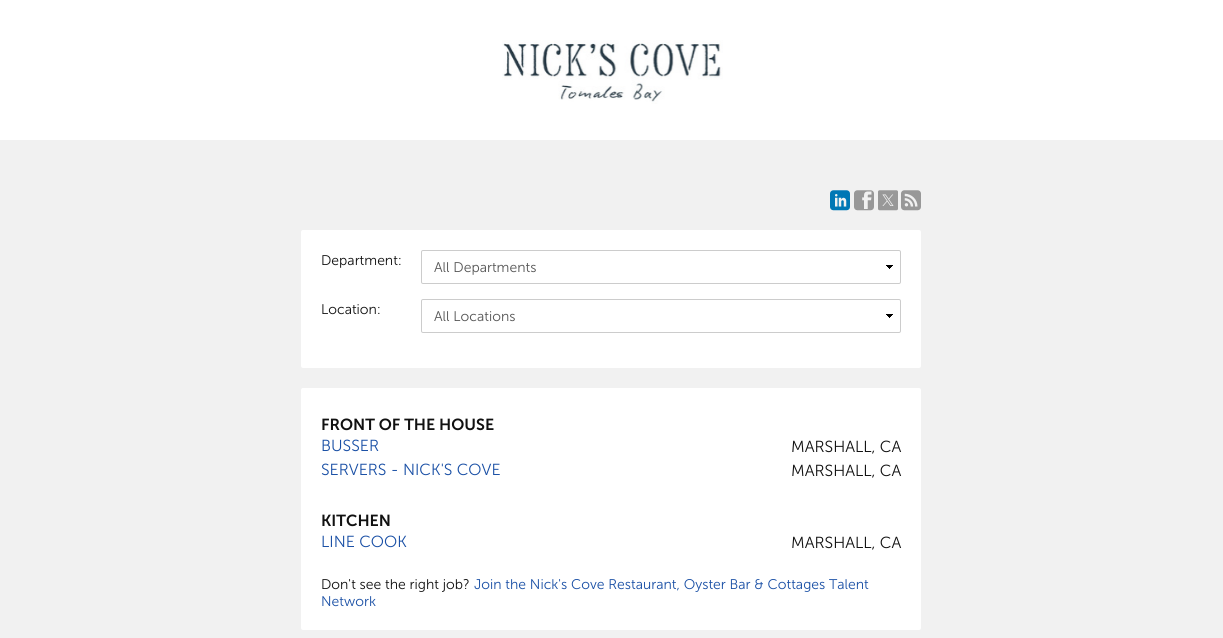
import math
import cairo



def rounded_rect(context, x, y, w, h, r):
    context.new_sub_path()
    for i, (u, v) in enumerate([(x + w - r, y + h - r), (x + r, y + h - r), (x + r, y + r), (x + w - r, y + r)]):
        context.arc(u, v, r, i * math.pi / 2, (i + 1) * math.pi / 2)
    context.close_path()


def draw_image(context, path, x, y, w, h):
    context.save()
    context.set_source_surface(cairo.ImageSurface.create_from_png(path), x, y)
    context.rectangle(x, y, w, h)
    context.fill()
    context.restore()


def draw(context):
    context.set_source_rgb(241 / 255, 241 / 255, 241 / 255)
    context.paint()
    context.set_source_rgb(1, 1, 1)
    context.rectangle(0, 0, 1223, 140)
    context.fill()
    draw_image(context, "images/1.png", 502, 40, 221, 64)
    draw_image(context, "images/2.png", 830, 190, 20, 21)
    draw_image(context, "images/3.png", 854, 190, 20, 21)
    draw_image(context, "images/4.png", 878, 190, 20, 21)
    draw_image(context, "images/5.png", 901, 190, 20, 21)
    rounded_rect(context, 301, 230, 620, 138, 2)
    context.fill()
    draw_image(context, "images/6.png", 886, 265, 7, 4)
    rounded_rect(context, 421.5, 250.5, 479, 33, 1.5)
    context.set_source_rgb(204 / 255, 204 / 255, 204 / 255)
    context.set_line_width(1)
    context.stroke()
    draw_image(context, "images/6.png", 886, 314, 7, 4)
    rounded_rect(context, 421.5, 299.5, 479, 33, 1.5)
    context.stroke()
    context.set_source_rgb(1, 1, 1)
    rounded_rect(context, 301, 388, 620, 242, 2)
    context.fill()
    context.select_font_face("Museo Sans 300 Light")
    context.set_font_size(14)
    context.set_source_rgb(17 / 255, 17 / 255, 17 / 255)
    context.move_to(321, 265)
    context.show_text("Department:")
    context.set_source_rgb(85 / 255, 85 / 255, 85 / 255)
    context.move_to(434, 272)
    context.show_text("All Departments")
    context.set_source_rgb(17 / 255, 17 / 255, 17 / 255)
    context.move_to(321, 314)
    context.show_text("Location:")
    context.set_source_rgb(85 / 255, 85 / 255, 85 / 255)
    context.move_to(434, 321)
    context.show_text("All Locations")
    context.select_font_face("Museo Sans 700 SemiBold")
    context.set_font_size(16)
    context.set_source_rgb(17 / 255, 17 / 255, 17 / 255)
    context.move_to(321, 430)
    context.show_text("FRONT OF THE HOUSE")
    context.select_font_face("Museo Sans 300 Light")
    context.set_source_rgb(25 / 255, 79 / 255, 165 / 255)
    context.move_to(321, 451)
    context.show_text("BUSSER")
    context.set_source_rgb(17 / 255, 17 / 255, 17 / 255)
    context.move_to(791, 452)
    context.show_text("MARSHALL, CA")
    context.set_source_rgb(25 / 255, 79 / 255, 165 / 255)
    context.move_to(321, 475)
    context.show_text("SERVERS - NICK'S COVE")
    context.set_source_rgb(17 / 255, 17 / 255, 17 / 255)
    context.move_to(791, 476)
    context.show_text("MARSHALL, CA")
    context.select_font_face("Museo Sans 700 SemiBold")
    context.move_to(321, 526)
    context.show_text("KITCHEN")
    context.select_font_face("Museo Sans 300 Light")
    context.set_source_rgb(25 / 255, 79 / 255, 165 / 255)
    context.move_to(321, 547)
    context.show_text("LINE COOK")
    context.set_source_rgb(17 / 255, 17 / 255, 17 / 255)
    context.move_to(791, 548)
    context.show_text("MARSHALL, CA")
    context.set_font_size(14)
    context.move_to(321, 589)
    context.show_text("Don't see the right job?")
    context.set_source_rgb(25 / 255, 79 / 255, 165 / 255)
    context.move_to(474, 589)
    context.show_text("Join the Nick's Cove Restaurant, Oyster Bar & Cottages Talent")
    context.move_to(321, 606)
    context.show_text("Network")


surface = cairo.ImageSurface(cairo.Format.RGB24, 1223, 638)
context = cairo.Context(surface)
options = cairo.FontOptions()
options.set_hint_metrics(cairo.HintMetrics.OFF)
options.set_hint_style(cairo.HintStyle.NONE)
context.set_font_options(options)
context.set_miter_limit(4)
draw(context)
surface.write_to_png("out.png")
